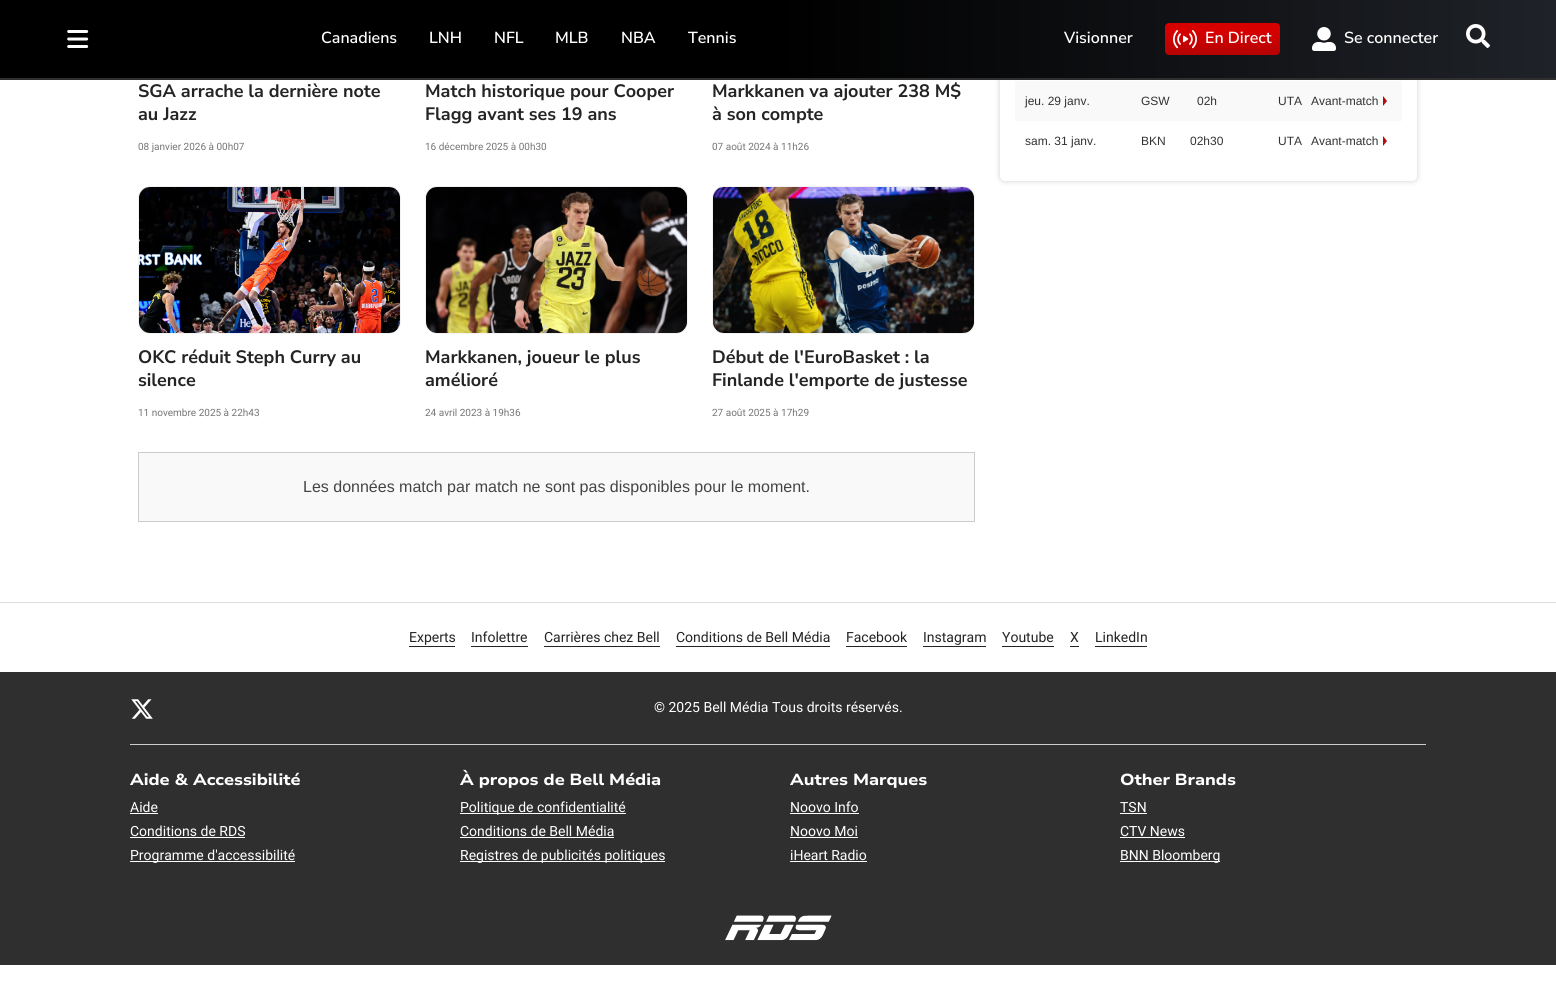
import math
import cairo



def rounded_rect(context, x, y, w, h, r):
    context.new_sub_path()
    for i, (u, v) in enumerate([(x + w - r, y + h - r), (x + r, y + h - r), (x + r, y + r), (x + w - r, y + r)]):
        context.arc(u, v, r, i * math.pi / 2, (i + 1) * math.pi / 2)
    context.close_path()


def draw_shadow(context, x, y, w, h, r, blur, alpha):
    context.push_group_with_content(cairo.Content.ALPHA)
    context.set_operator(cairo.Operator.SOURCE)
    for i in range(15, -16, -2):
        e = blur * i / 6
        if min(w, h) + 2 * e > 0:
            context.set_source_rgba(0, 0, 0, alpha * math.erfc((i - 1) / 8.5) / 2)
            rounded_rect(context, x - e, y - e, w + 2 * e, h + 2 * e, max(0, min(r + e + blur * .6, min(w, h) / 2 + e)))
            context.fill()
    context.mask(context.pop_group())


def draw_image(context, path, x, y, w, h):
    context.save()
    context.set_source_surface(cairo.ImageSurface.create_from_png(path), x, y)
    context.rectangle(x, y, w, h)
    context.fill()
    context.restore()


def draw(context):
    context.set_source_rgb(1, 1, 1)
    context.paint()
    context.set_source_rgb(222 / 255, 222 / 255, 222 / 255)
    draw_shadow(context, 999, -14, 419, 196, 6, 2.5, 1)
    context.set_source_rgb(1, 1, 1)
    rounded_rect(context, 999.5, -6.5, 418, 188, 5.5)
    context.fill_preserve()
    context.set_source_rgb(234 / 255, 234 / 255, 234 / 255)
    context.set_line_width(1)
    context.stroke()
    gradient = cairo.LinearGradient(0, 39, 1556, 39)
    gradient.add_color_stop_rgba(0.5, 0, 0, 0, 1)
    gradient.add_color_stop_rgba(1, 31 / 255, 34 / 255, 40 / 255, 1)
    context.set_source(gradient)
    context.rectangle(0, 0, 1556, 78)
    context.fill()
    context.set_source_rgb(47 / 255, 47 / 255, 47 / 255)
    context.rectangle(0, 78, 1556, 2)
    context.fill()
    draw_image(context, "images/1.png", 67, 30, 22, 18)
    gradient = cairo.LinearGradient(1223, 23, 1223, 78)
    gradient.add_color_stop_rgba(0.15, 215 / 255, 0, 0, 1)
    gradient.add_color_stop_rgba(1, 146 / 255, 5 / 255, 5 / 255, 1)
    context.set_source(gradient)
    rounded_rect(context, 1165, 23, 115, 32, 4)
    context.fill()
    draw_image(context, "images/2.png", 1173, 30, 24, 19)
    draw_image(context, "images/3.png", 1312, 27, 24, 24)
    draw_image(context, "images/4.png", 1466, 24, 24, 24)
    rounded_rect(context, 138.5, 186.5, 262, 147, 11.5)
    context.set_source_rgb(242 / 255, 242 / 255, 242 / 255)
    context.stroke()
    draw_image(context, "images/5.png", 139, 187, 261, 146)
    rounded_rect(context, 425.5, 186.5, 262, 147, 11.5)
    context.stroke()
    draw_image(context, "images/6.png", 426, 187, 261, 146)
    rounded_rect(context, 712.5, 186.5, 262, 147, 11.5)
    context.stroke()
    draw_image(context, "images/7.png", 713, 187, 261, 146)
    context.set_source_rgb(249 / 255, 249 / 255, 249 / 255)
    context.rectangle(138.5, 452.5, 836, 69)
    context.fill_preserve()
    context.set_source_rgb(204 / 255, 204 / 255, 204 / 255)
    context.stroke()
    context.set_source_rgb(249 / 255, 249 / 255, 249 / 255)
    context.rectangle(1015, 81, 387, 40)
    context.fill()
    context.set_source_rgb(185 / 255, 10 / 255, 10 / 255)
    context.new_path()
    context.move_to(1383, 106)
    context.line_to(1383, 96)
    context.line_to(1387, 101)
    context.close_path()
    context.fill()
    context.new_path()
    context.move_to(1383, 146)
    context.line_to(1383, 136)
    context.line_to(1387, 141)
    context.close_path()
    context.fill()
    context.set_source_rgb(47 / 255, 47 / 255, 47 / 255)
    context.rectangle(0, 672, 1556, 293)
    context.fill()
    context.set_source_rgb(221 / 255, 221 / 255, 221 / 255)
    context.rectangle(0, 602, 1556, 1)
    context.fill()
    context.set_source_rgb(36 / 255, 36 / 255, 36 / 255)
    context.rectangle(409, 646, 46, 1)
    context.fill()
    context.rectangle(471, 646, 57, 1)
    context.fill()
    context.rectangle(544, 646, 116, 1)
    context.fill()
    context.rectangle(676, 646, 154, 1)
    context.fill()
    context.rectangle(846, 646, 61, 1)
    context.fill()
    context.rectangle(923, 646, 63, 1)
    context.fill()
    context.rectangle(1002, 646, 52, 1)
    context.fill()
    context.rectangle(1070, 646, 9, 1)
    context.fill()
    context.rectangle(1095, 646, 52, 1)
    context.fill()
    context.set_source_rgb(204 / 255, 204 / 255, 204 / 255)
    context.rectangle(130, 744, 1296, 1)
    context.fill()
    draw_image(context, "images/8.png", 131, 699, 22, 20)
    context.set_source_rgb(1, 1, 1)
    context.rectangle(130, 813, 28, 1)
    context.fill()
    context.rectangle(130, 837, 115, 1)
    context.fill()
    context.rectangle(130, 861, 165, 1)
    context.fill()
    context.rectangle(460, 813, 166, 1)
    context.fill()
    context.rectangle(460, 837, 154, 1)
    context.fill()
    context.rectangle(460, 861, 205, 1)
    context.fill()
    context.rectangle(790, 813, 69, 1)
    context.fill()
    context.rectangle(790, 837, 68, 1)
    context.fill()
    context.rectangle(790, 861, 77, 1)
    context.fill()
    context.rectangle(1120, 813, 27, 1)
    context.fill()
    context.rectangle(1120, 837, 65, 1)
    context.fill()
    context.rectangle(1120, 861, 100, 1)
    context.fill()
    draw_image(context, "images/9.png", 725, 915, 107, 26)
    context.select_font_face("Nunito Sans SemiBold")
    context.set_font_size(16)
    context.move_to(321, 43)
    context.show_text("Canadiens")
    context.move_to(429, 43)
    context.show_text("LNH")
    context.move_to(494, 43)
    context.show_text("NFL")
    context.move_to(555, 43)
    context.show_text("MLB")
    context.move_to(621, 43)
    context.show_text("NBA")
    context.move_to(688, 43)
    context.show_text("Tennis")
    context.move_to(1064, 43)
    context.show_text("Visionner")
    context.move_to(1205, 43)
    context.show_text("En Direct")
    context.move_to(1344, 43)
    context.show_text("Se connecter")
    context.select_font_face("Nunito Sans", cairo.FontSlant.NORMAL, cairo.FontWeight.BOLD)
    context.set_font_size(18)
    context.set_source_rgb(36 / 255, 36 / 255, 36 / 255)
    context.move_to(138, 97)
    context.show_text("SGA arrache la dernière note")
    context.move_to(138, 120)
    context.show_text("au Jazz")
    context.select_font_face("Roboto")
    context.set_font_size(10)
    context.set_source_rgb(117 / 255, 117 / 255, 117 / 255)
    context.move_to(138, 150)
    context.show_text("08 janvier 2026 à 00h07")
    context.select_font_face("Nunito Sans", cairo.FontSlant.NORMAL, cairo.FontWeight.BOLD)
    context.set_font_size(18)
    context.set_source_rgb(36 / 255, 36 / 255, 36 / 255)
    context.move_to(425, 97)
    context.show_text("Match historique pour Cooper")
    context.move_to(425, 120)
    context.show_text("Flagg avant ses 19 ans")
    context.select_font_face("Roboto")
    context.set_font_size(10)
    context.set_source_rgb(117 / 255, 117 / 255, 117 / 255)
    context.move_to(425, 150)
    context.show_text("16 décembre 2025 à 00h30")
    context.select_font_face("Nunito Sans", cairo.FontSlant.NORMAL, cairo.FontWeight.BOLD)
    context.set_font_size(18)
    context.set_source_rgb(36 / 255, 36 / 255, 36 / 255)
    context.move_to(712, 97)
    context.show_text("Markkanen va ajouter 238 M$")
    context.move_to(712, 120)
    context.show_text("à son compte")
    context.select_font_face("Roboto")
    context.set_font_size(10)
    context.set_source_rgb(117 / 255, 117 / 255, 117 / 255)
    context.move_to(712, 150)
    context.show_text("07 août 2024 à 11h26")
    context.select_font_face("Nunito Sans", cairo.FontSlant.NORMAL, cairo.FontWeight.BOLD)
    context.set_font_size(18)
    context.set_source_rgb(36 / 255, 36 / 255, 36 / 255)
    context.move_to(138, 363)
    context.show_text("OKC réduit Steph Curry au")
    context.move_to(138, 386)
    context.show_text("silence")
    context.select_font_face("Roboto")
    context.set_font_size(10)
    context.set_source_rgb(117 / 255, 117 / 255, 117 / 255)
    context.move_to(138, 416)
    context.show_text("11 novembre 2025 à 22h43")
    context.select_font_face("Nunito Sans", cairo.FontSlant.NORMAL, cairo.FontWeight.BOLD)
    context.set_font_size(18)
    context.set_source_rgb(36 / 255, 36 / 255, 36 / 255)
    context.move_to(425, 363)
    context.show_text("Markkanen, joueur le plus")
    context.move_to(425, 386)
    context.show_text("amélioré")
    context.select_font_face("Roboto")
    context.set_font_size(10)
    context.set_source_rgb(117 / 255, 117 / 255, 117 / 255)
    context.move_to(425, 416)
    context.show_text("24 avril 2023 à 19h36")
    context.select_font_face("Nunito Sans", cairo.FontSlant.NORMAL, cairo.FontWeight.BOLD)
    context.set_font_size(18)
    context.set_source_rgb(36 / 255, 36 / 255, 36 / 255)
    context.move_to(712, 363)
    context.show_text("Début de l'EuroBasket : la")
    context.move_to(712, 386)
    context.show_text("Finlande l'emporte de justesse")
    context.select_font_face("Roboto")
    context.set_font_size(10)
    context.set_source_rgb(117 / 255, 117 / 255, 117 / 255)
    context.move_to(712, 416)
    context.show_text("27 août 2025 à 17h29")
    context.select_font_face("Liberation Sans")
    context.set_font_size(16)
    context.set_source_rgb(68 / 255, 68 / 255, 68 / 255)
    context.move_to(303, 492)
    context.show_text("Les données match par match ne sont pas disponibles pour le moment.")
    context.set_font_size(12)
    context.set_source_rgb(50 / 255, 50 / 255, 50 / 255)
    context.move_to(1025, 105)
    context.show_text("jeu. 29 janv.")
    context.move_to(1141, 105)
    context.show_text("GSW")
    context.move_to(1197, 105)
    context.show_text("02h")
    context.move_to(1278, 105)
    context.show_text("UTA")
    context.move_to(1311, 105)
    context.show_text("Avant-match")
    context.move_to(1025, 145)
    context.show_text("sam. 31 janv.")
    context.move_to(1141, 145)
    context.show_text("BKN")
    context.move_to(1190, 145)
    context.show_text("02h30")
    context.move_to(1278, 145)
    context.show_text("UTA")
    context.move_to(1311, 145)
    context.show_text("Avant-match")
    context.select_font_face("Roboto")
    context.set_font_size(14)
    context.set_source_rgb(36 / 255, 36 / 255, 36 / 255)
    context.move_to(409, 642)
    context.show_text("Experts")
    context.move_to(471, 642)
    context.show_text("Infolettre")
    context.move_to(544, 642)
    context.show_text("Carrières chez Bell")
    context.move_to(676, 642)
    context.show_text("Conditions de Bell Média")
    context.move_to(846, 642)
    context.show_text("Facebook")
    context.move_to(923, 642)
    context.show_text("Instagram")
    context.move_to(1002, 642)
    context.show_text("Youtube")
    context.move_to(1070, 642)
    context.show_text("X")
    context.move_to(1095, 642)
    context.show_text("LinkedIn")
    context.set_source_rgb(1, 1, 1)
    context.move_to(654, 712)
    context.show_text("© 2025 Bell Média Tous droits réservés.")
    context.select_font_face("Nunito Sans ExtraBold")
    context.set_font_size(16)
    context.move_to(130, 785)
    context.show_text("Aide & Accessibilité")
    context.select_font_face("Roboto")
    context.set_font_size(14)
    context.move_to(130, 812)
    context.show_text("Aide")
    context.move_to(130, 836)
    context.show_text("Conditions de RDS")
    context.move_to(130, 860)
    context.show_text("Programme d'accessibilité")
    context.select_font_face("Nunito Sans ExtraBold")
    context.set_font_size(16)
    context.move_to(460, 785)
    context.show_text("À propos de Bell Média")
    context.select_font_face("Roboto")
    context.set_font_size(14)
    context.move_to(460, 812)
    context.show_text("Politique de confidentialité")
    context.move_to(460, 836)
    context.show_text("Conditions de Bell Média")
    context.move_to(460, 860)
    context.show_text("Registres de publicités politiques")
    context.select_font_face("Nunito Sans ExtraBold")
    context.set_font_size(16)
    context.move_to(790, 785)
    context.show_text("Autres Marques")
    context.select_font_face("Roboto")
    context.set_font_size(14)
    context.move_to(790, 812)
    context.show_text("Noovo Info")
    context.move_to(790, 836)
    context.show_text("Noovo Moi")
    context.move_to(790, 860)
    context.show_text("iHeart Radio")
    context.select_font_face("Nunito Sans ExtraBold")
    context.set_font_size(16)
    context.move_to(1120, 785)
    context.show_text("Other Brands")
    context.select_font_face("Roboto")
    context.set_font_size(14)
    context.move_to(1120, 812)
    context.show_text("TSN")
    context.move_to(1120, 836)
    context.show_text("CTV News")
    context.move_to(1120, 860)
    context.show_text("BNN Bloomberg")


surface = cairo.ImageSurface(cairo.Format.RGB24, 1556, 989)
context = cairo.Context(surface)
options = cairo.FontOptions()
options.set_hint_metrics(cairo.HintMetrics.OFF)
options.set_hint_style(cairo.HintStyle.NONE)
context.set_font_options(options)
context.set_miter_limit(4)
draw(context)
surface.write_to_png("out.png")
